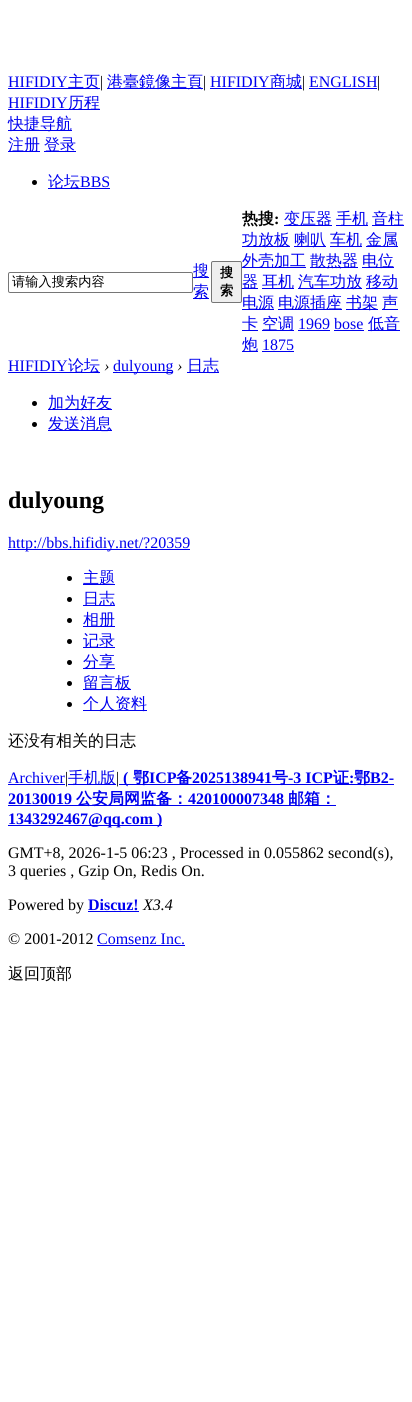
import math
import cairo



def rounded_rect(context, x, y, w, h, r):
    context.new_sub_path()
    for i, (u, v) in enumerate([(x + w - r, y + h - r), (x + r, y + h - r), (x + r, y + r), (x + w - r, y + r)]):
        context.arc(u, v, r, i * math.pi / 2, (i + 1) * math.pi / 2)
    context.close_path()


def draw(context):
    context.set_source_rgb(1, 1, 1)
    context.paint()
    context.set_source_rgb(0, 0, 238 / 255)
    context.rectangle(8, 88, 92, 1)
    context.fill()
    context.rectangle(107, 88, 96, 1)
    context.fill()
    context.rectangle(210, 88, 92, 1)
    context.fill()
    context.rectangle(309, 88, 68, 1)
    context.fill()
    context.rectangle(8, 109, 92, 1)
    context.fill()
    context.rectangle(8, 130, 64, 1)
    context.fill()
    context.rectangle(8, 151, 32, 1)
    context.fill()
    context.rectangle(44, 151, 32, 1)
    context.fill()
    context.set_source_rgb(0, 0, 0)
    context.arc(34.5, 182.5, 2.5, 0, 2 * math.pi)
    context.fill()
    context.set_source_rgb(0, 0, 238 / 255)
    context.rectangle(48, 188, 62, 1)
    context.fill()
    rounded_rect(context, 8.5, 272.5, 184, 20, 1.5)
    context.set_source_rgb(118 / 255, 118 / 255, 118 / 255)
    context.set_line_width(1)
    context.stroke()
    context.set_source_rgb(0, 0, 238 / 255)
    context.rectangle(193, 277, 16, 1)
    context.fill()
    context.rectangle(193, 298, 16, 1)
    context.fill()
    context.set_source_rgb(239 / 255, 239 / 255, 239 / 255)
    rounded_rect(context, 211.5, 261.5, 30, 41, 1.5)
    context.fill_preserve()
    context.set_source_rgb(118 / 255, 118 / 255, 118 / 255)
    context.stroke()
    context.set_source_rgb(0, 0, 238 / 255)
    context.rectangle(284, 225, 48, 1)
    context.fill()
    context.rectangle(336, 225, 32, 1)
    context.fill()
    context.rectangle(372, 225, 32, 1)
    context.fill()
    context.rectangle(242, 246, 48, 1)
    context.fill()
    context.rectangle(294, 246, 32, 1)
    context.fill()
    context.rectangle(330, 246, 32, 1)
    context.fill()
    context.rectangle(366, 246, 32, 1)
    context.fill()
    context.rectangle(242, 267, 64, 1)
    context.fill()
    context.rectangle(310, 267, 48, 1)
    context.fill()
    context.rectangle(362, 267, 32, 1)
    context.fill()
    context.rectangle(242, 288, 16, 1)
    context.fill()
    context.rectangle(262, 288, 32, 1)
    context.fill()
    context.rectangle(298, 288, 64, 1)
    context.fill()
    context.rectangle(366, 288, 32, 1)
    context.fill()
    context.rectangle(242, 309, 32, 1)
    context.fill()
    context.rectangle(278, 309, 64, 1)
    context.fill()
    context.rectangle(346, 309, 32, 1)
    context.fill()
    context.rectangle(382, 309, 16, 1)
    context.fill()
    context.rectangle(242, 330, 16, 1)
    context.fill()
    context.rectangle(262, 330, 32, 1)
    context.fill()
    context.rectangle(298, 330, 32, 1)
    context.fill()
    context.rectangle(368, 330, 32, 1)
    context.fill()
    context.rectangle(334, 330, 30, 1)
    context.fill()
    context.rectangle(242, 351, 16, 1)
    context.fill()
    context.rectangle(262, 351, 32, 1)
    context.fill()
    context.rectangle(8, 372, 92, 1)
    context.fill()
    context.rectangle(113, 372, 60, 1)
    context.fill()
    context.rectangle(187, 372, 32, 1)
    context.fill()
    context.set_source_rgb(0, 0, 0)
    context.arc(34.5, 403.5, 2.5, 0, 2 * math.pi)
    context.fill()
    context.set_source_rgb(0, 0, 238 / 255)
    context.rectangle(48, 409, 64, 1)
    context.fill()
    context.set_source_rgb(0, 0, 0)
    context.arc(34.5, 424.5, 2.5, 0, 2 * math.pi)
    context.fill()
    context.set_source_rgb(0, 0, 238 / 255)
    context.rectangle(48, 430, 64, 1)
    context.fill()
    context.rectangle(8, 549, 182, 1)
    context.fill()
    context.set_source_rgb(0, 0, 0)
    context.arc(69.5, 578.5, 2.5, 0, 2 * math.pi)
    context.fill()
    context.set_source_rgb(0, 0, 238 / 255)
    context.rectangle(83, 584, 32, 1)
    context.fill()
    context.set_source_rgb(0, 0, 0)
    context.arc(69.5, 599.5, 2.5, 0, 2 * math.pi)
    context.fill()
    context.set_source_rgb(0, 0, 238 / 255)
    context.rectangle(83, 605, 32, 1)
    context.fill()
    context.set_source_rgb(0, 0, 0)
    context.arc(69.5, 620.5, 2.5, 0, 2 * math.pi)
    context.fill()
    context.set_source_rgb(0, 0, 238 / 255)
    context.rectangle(83, 626, 32, 1)
    context.fill()
    context.set_source_rgb(0, 0, 0)
    context.arc(69.5, 641.5, 2.5, 0, 2 * math.pi)
    context.fill()
    context.set_source_rgb(0, 0, 238 / 255)
    context.rectangle(83, 647, 32, 1)
    context.fill()
    context.set_source_rgb(0, 0, 0)
    context.arc(69.5, 662.5, 2.5, 0, 2 * math.pi)
    context.fill()
    context.set_source_rgb(0, 0, 238 / 255)
    context.rectangle(83, 668, 32, 1)
    context.fill()
    context.set_source_rgb(0, 0, 0)
    context.arc(69.5, 683.5, 2.5, 0, 2 * math.pi)
    context.fill()
    context.set_source_rgb(0, 0, 238 / 255)
    context.rectangle(83, 689, 48, 1)
    context.fill()
    context.set_source_rgb(0, 0, 0)
    context.arc(69.5, 704.5, 2.5, 0, 2 * math.pi)
    context.fill()
    context.set_source_rgb(0, 0, 238 / 255)
    context.rectangle(83, 710, 64, 1)
    context.fill()
    context.rectangle(8, 784, 57, 1)
    context.fill()
    context.rectangle(68, 784, 48, 1)
    context.fill()
    context.rectangle(119, 784, 275, 1)
    context.fill()
    context.rectangle(8, 805, 328, 1)
    context.fill()
    context.rectangle(8, 825, 154, 1)
    context.fill()
    context.rectangle(88, 911, 51, 1)
    context.fill()
    context.rectangle(97, 945, 88, 1)
    context.fill()
    context.select_font_face("Liberation Serif")
    context.set_font_size(16)
    context.move_to(8, 87)
    context.show_text("HIFIDIY")
    context.select_font_face("WenQuanYi Zen Hei Medium")
    context.move_to(68, 87)
    context.show_text("主页")
    context.select_font_face("Liberation Serif")
    context.set_source_rgb(0, 0, 0)
    context.move_to(100, 87)
    context.show_text("|")
    context.select_font_face("WenQuanYi Zen Hei Medium")
    context.set_source_rgb(0, 0, 238 / 255)
    context.move_to(107, 87)
    context.show_text("港臺鏡像主頁")
    context.select_font_face("Liberation Serif")
    context.set_source_rgb(0, 0, 0)
    context.move_to(203, 87)
    context.show_text("|")
    context.set_source_rgb(0, 0, 238 / 255)
    context.move_to(210, 87)
    context.show_text("HIFIDIY")
    context.select_font_face("WenQuanYi Zen Hei Medium")
    context.move_to(270, 87)
    context.show_text("商城")
    context.select_font_face("Liberation Serif")
    context.set_source_rgb(0, 0, 0)
    context.move_to(302, 87)
    context.show_text("|")
    context.set_source_rgb(0, 0, 238 / 255)
    context.move_to(309, 87)
    context.show_text("ENGLISH")
    context.set_source_rgb(0, 0, 0)
    context.move_to(377, 87)
    context.show_text("|")
    context.set_source_rgb(0, 0, 238 / 255)
    context.move_to(8, 108)
    context.show_text("HIFIDIY")
    context.select_font_face("WenQuanYi Zen Hei Medium")
    context.move_to(68, 108)
    context.show_text("历程")
    context.move_to(8, 129)
    context.show_text("快捷导航")
    context.move_to(8, 150)
    context.show_text("注册")
    context.move_to(44, 150)
    context.show_text("登录")
    context.move_to(48, 187)
    context.show_text("论坛")
    context.select_font_face("Liberation Serif")
    context.move_to(80, 187)
    context.show_text("BBS")
    context.select_font_face("WenQuanYi Zen Hei Medium")
    context.set_font_size(13.25)
    context.set_source_rgb(0, 0, 0)
    context.move_to(12, 286)
    context.show_text("请输入搜索内容")
    context.set_font_size(16)
    context.set_source_rgb(0, 0, 238 / 255)
    context.move_to(193, 276)
    context.show_text("搜")
    context.move_to(193, 297)
    context.show_text("索")
    context.select_font_face("WenQuanYi Zen Hei", cairo.FontSlant.NORMAL, cairo.FontWeight.BOLD)
    context.set_font_size(13.25)
    context.set_source_rgb(0, 0, 0)
    context.move_to(220, 277)
    context.show_text("搜")
    context.move_to(220, 295)
    context.show_text("索")
    context.set_font_size(16)
    context.move_to(242, 224)
    context.show_text("热搜")
    context.select_font_face("Liberation Serif", cairo.FontSlant.NORMAL, cairo.FontWeight.BOLD)
    context.move_to(274, 224)
    context.show_text(":")
    context.select_font_face("WenQuanYi Zen Hei Medium")
    context.set_source_rgb(0, 0, 238 / 255)
    context.move_to(284, 224)
    context.show_text("变压器")
    context.move_to(336, 224)
    context.show_text("手机")
    context.move_to(372, 224)
    context.show_text("音柱")
    context.move_to(242, 245)
    context.show_text("功放板")
    context.move_to(294, 245)
    context.show_text("喇叭")
    context.move_to(330, 245)
    context.show_text("车机")
    context.move_to(366, 245)
    context.show_text("金属")
    context.move_to(242, 266)
    context.show_text("外壳加工")
    context.move_to(310, 266)
    context.show_text("散热器")
    context.move_to(362, 266)
    context.show_text("电位")
    context.move_to(242, 287)
    context.show_text("器")
    context.move_to(262, 287)
    context.show_text("耳机")
    context.move_to(298, 287)
    context.show_text("汽车功放")
    context.move_to(366, 287)
    context.show_text("移动")
    context.move_to(242, 308)
    context.show_text("电源")
    context.move_to(278, 308)
    context.show_text("电源插座")
    context.move_to(346, 308)
    context.show_text("书架")
    context.move_to(382, 308)
    context.show_text("声")
    context.move_to(242, 329)
    context.show_text("卡")
    context.move_to(262, 329)
    context.show_text("空调")
    context.select_font_face("Liberation Serif")
    context.move_to(298, 329)
    context.show_text("1969 bose")
    context.select_font_face("WenQuanYi Zen Hei Medium")
    context.move_to(368, 329)
    context.show_text("低音")
    context.move_to(242, 350)
    context.show_text("炮")
    context.select_font_face("Liberation Serif")
    context.move_to(262, 350)
    context.show_text("1875")
    context.move_to(8, 371)
    context.show_text("HIFIDIY")
    context.select_font_face("WenQuanYi Zen Hei Medium")
    context.move_to(68, 371)
    context.show_text("论坛")
    context.select_font_face("Liberation Serif", cairo.FontSlant.ITALIC)
    context.set_source_rgb(0, 0, 0)
    context.move_to(104, 371)
    context.show_text("›")
    context.select_font_face("Liberation Serif")
    context.set_source_rgb(0, 0, 238 / 255)
    context.move_to(113, 371)
    context.show_text("dulyoung")
    context.select_font_face("Liberation Serif", cairo.FontSlant.ITALIC)
    context.set_source_rgb(0, 0, 0)
    context.move_to(177, 371)
    context.show_text("›")
    context.select_font_face("WenQuanYi Zen Hei Medium")
    context.set_source_rgb(0, 0, 238 / 255)
    context.move_to(187, 371)
    context.show_text("日志")
    context.move_to(48, 408)
    context.show_text("加为好友")
    context.move_to(48, 429)
    context.show_text("发送消息")
    context.select_font_face("Liberation Serif", cairo.FontSlant.NORMAL, cairo.FontWeight.BOLD)
    context.set_font_size(24)
    context.set_source_rgb(0, 0, 0)
    context.move_to(8, 508)
    context.show_text("dulyoung")
    context.select_font_face("Liberation Serif")
    context.set_font_size(16)
    context.set_source_rgb(0, 0, 238 / 255)
    context.move_to(8, 548)
    context.show_text("http://bbs.hifidiy.net/?20359")
    context.select_font_face("WenQuanYi Zen Hei Medium")
    context.move_to(83, 583)
    context.show_text("主题")
    context.move_to(83, 604)
    context.show_text("日志")
    context.move_to(83, 625)
    context.show_text("相册")
    context.move_to(83, 646)
    context.show_text("记录")
    context.move_to(83, 667)
    context.show_text("分享")
    context.move_to(83, 688)
    context.show_text("留言板")
    context.move_to(83, 709)
    context.show_text("个人资料")
    context.set_source_rgb(0, 0, 0)
    context.move_to(8, 746)
    context.show_text("还没有相关的日志")
    context.select_font_face("Liberation Serif")
    context.set_source_rgb(0, 0, 238 / 255)
    context.move_to(8, 783)
    context.show_text("Archiver")
    context.set_source_rgb(0, 0, 0)
    context.move_to(65, 783)
    context.show_text("|")
    context.select_font_face("WenQuanYi Zen Hei Medium")
    context.set_source_rgb(0, 0, 238 / 255)
    context.move_to(68, 783)
    context.show_text("手机版")
    context.select_font_face("Liberation Serif")
    context.set_source_rgb(0, 0, 0)
    context.move_to(116, 783)
    context.show_text("|")
    context.select_font_face("Liberation Serif", cairo.FontSlant.NORMAL, cairo.FontWeight.BOLD)
    context.set_source_rgb(0, 0, 238 / 255)
    context.move_to(123, 783)
    context.show_text("(")
    context.select_font_face("WenQuanYi Zen Hei", cairo.FontSlant.NORMAL, cairo.FontWeight.BOLD)
    context.move_to(133, 783)
    context.show_text("鄂")
    context.select_font_face("Liberation Serif", cairo.FontSlant.NORMAL, cairo.FontWeight.BOLD)
    context.move_to(149, 783)
    context.show_text("ICP")
    context.select_font_face("WenQuanYi Zen Hei", cairo.FontSlant.NORMAL, cairo.FontWeight.BOLD)
    context.move_to(176, 783)
    context.show_text("备")
    context.select_font_face("Liberation Serif", cairo.FontSlant.NORMAL, cairo.FontWeight.BOLD)
    context.move_to(192, 783)
    context.show_text("2025138941")
    context.select_font_face("WenQuanYi Zen Hei", cairo.FontSlant.NORMAL, cairo.FontWeight.BOLD)
    context.move_to(272, 783)
    context.show_text("号")
    context.select_font_face("Liberation Serif", cairo.FontSlant.NORMAL, cairo.FontWeight.BOLD)
    context.move_to(288, 783)
    context.show_text("-3 ICP")
    context.select_font_face("WenQuanYi Zen Hei", cairo.FontSlant.NORMAL, cairo.FontWeight.BOLD)
    context.move_to(333, 783)
    context.show_text("证")
    context.select_font_face("Liberation Serif", cairo.FontSlant.NORMAL, cairo.FontWeight.BOLD)
    context.move_to(349, 783)
    context.show_text(":")
    context.select_font_face("WenQuanYi Zen Hei", cairo.FontSlant.NORMAL, cairo.FontWeight.BOLD)
    context.move_to(354, 783)
    context.show_text("鄂")
    context.select_font_face("Liberation Serif", cairo.FontSlant.NORMAL, cairo.FontWeight.BOLD)
    context.move_to(370, 783)
    context.show_text("B2-")
    context.move_to(8, 804)
    context.show_text("20130019")
    context.select_font_face("WenQuanYi Zen Hei", cairo.FontSlant.NORMAL, cairo.FontWeight.BOLD)
    context.move_to(76, 804)
    context.show_text("公安局网监备：")
    context.select_font_face("Liberation Serif", cairo.FontSlant.NORMAL, cairo.FontWeight.BOLD)
    context.move_to(188, 804)
    context.show_text("420100007348")
    context.select_font_face("WenQuanYi Zen Hei", cairo.FontSlant.NORMAL, cairo.FontWeight.BOLD)
    context.move_to(288, 804)
    context.show_text("邮箱：")
    context.select_font_face("Liberation Serif", cairo.FontSlant.NORMAL, cairo.FontWeight.BOLD)
    context.move_to(8, 824)
    context.show_text("1343292467@qq.com )")
    context.select_font_face("Liberation Serif")
    context.set_source_rgb(0, 0, 0)
    context.move_to(8, 858)
    context.show_text("GMT+8, 2026-1-5 06:23 , Processed in 0.055862 second(s),")
    context.move_to(8, 876)
    context.show_text("3 queries , Gzip On, Redis On.")
    context.move_to(8, 910)
    context.show_text("Powered by")
    context.select_font_face("Liberation Serif", cairo.FontSlant.NORMAL, cairo.FontWeight.BOLD)
    context.set_source_rgb(0, 0, 238 / 255)
    context.move_to(88, 910)
    context.show_text("Discuz!")
    context.select_font_face("Liberation Serif", cairo.FontSlant.ITALIC)
    context.set_source_rgb(0, 0, 0)
    context.move_to(143, 910)
    context.show_text("X3.4")
    context.select_font_face("Liberation Serif")
    context.move_to(8, 944)
    context.show_text("© 2001-2012")
    context.set_source_rgb(0, 0, 238 / 255)
    context.move_to(97, 944)
    context.show_text("Comsenz Inc.")
    context.select_font_face("WenQuanYi Zen Hei Medium")
    context.set_source_rgb(0, 0, 0)
    context.move_to(8, 979)
    context.show_text("返回顶部")


surface = cairo.ImageSurface(cairo.Format.RGB24, 412, 1402)
context = cairo.Context(surface)
options = cairo.FontOptions()
options.set_hint_metrics(cairo.HintMetrics.OFF)
options.set_hint_style(cairo.HintStyle.NONE)
context.set_font_options(options)
context.set_miter_limit(4)
draw(context)
surface.write_to_png("out.png")
